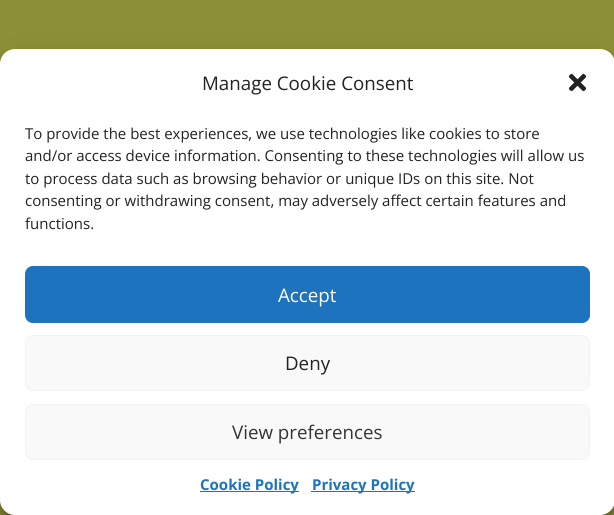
import math
import cairo



def rounded_rect(context, x, y, w, h, r):
    context.new_sub_path()
    for i, (u, v) in enumerate([(x + w - r, y + h - r), (x + r, y + h - r), (x + r, y + r), (x + w - r, y + r)]):
        context.arc(u, v, r, i * math.pi / 2, (i + 1) * math.pi / 2)
    context.close_path()


def draw_shadow(context, x, y, w, h, r, blur, alpha):
    context.push_group_with_content(cairo.Content.ALPHA)
    context.set_operator(cairo.Operator.SOURCE)
    for i in range(15, -16, -2):
        e = blur * i / 6
        if min(w, h) + 2 * e > 0:
            context.set_source_rgba(0, 0, 0, alpha * math.erfc((i - 1) / 8.5) / 2)
            rounded_rect(context, x - e, y - e, w + 2 * e, h + 2 * e, max(0, min(r + e + blur * .6, min(w, h) / 2 + e)))
            context.fill()
    context.mask(context.pop_group())


def draw_image(context, path, x, y, w, h):
    context.save()
    context.set_source_surface(cairo.ImageSurface.create_from_png(path), x, y)
    context.rectangle(x, y, w, h)
    context.fill()
    context.restore()


def draw(context):
    context.set_source_rgb(141 / 255, 143 / 255, 54 / 255)
    context.paint()
    context.set_source_rgb(0, 0, 0)
    draw_shadow(context, 0, 56, 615, 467, 15, 4, 0.23)
    draw_shadow(context, 0, 61, 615, 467, 15, 12.5, 0.19)
    context.set_source_rgb(1, 1, 1)
    rounded_rect(context, 0, 49, 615, 466, 15)
    context.fill()
    draw_image(context, "images/1.png", 568, 73, 19, 19)
    context.set_source_rgb(30 / 255, 115 / 255, 190 / 255)
    rounded_rect(context, 25.5, 266.5, 564, 56, 7.5)
    context.fill_preserve()
    context.set_line_width(1)
    context.stroke()
    context.set_source_rgb(249 / 255, 249 / 255, 249 / 255)
    rounded_rect(context, 25.5, 335.5, 564, 55, 7.5)
    context.fill_preserve()
    context.set_source_rgb(242 / 255, 242 / 255, 242 / 255)
    context.stroke()
    context.set_source_rgb(249 / 255, 249 / 255, 249 / 255)
    rounded_rect(context, 25.5, 404.5, 564, 55, 7.5)
    context.fill_preserve()
    context.set_source_rgb(242 / 255, 242 / 255, 242 / 255)
    context.stroke()
    context.set_source_rgb(30 / 255, 115 / 255, 190 / 255)
    context.rectangle(200, 491, 99, 1)
    context.fill()
    context.rectangle(311, 491, 104, 1)
    context.fill()
    context.select_font_face("Open Sans")
    context.set_font_size(18.75)
    context.set_source_rgb(34 / 255, 34 / 255, 34 / 255)
    context.move_to(202, 90)
    context.show_text("Manage Cookie Consent")
    context.set_font_size(15)
    context.move_to(25, 139)
    context.show_text("To provide the best experiences, we use technologies like cookies to store")
    context.move_to(25, 161)
    context.show_text("and/or access device information. Consenting to these technologies will allow us")
    context.move_to(25, 184)
    context.show_text("to process data such as browsing behavior or unique IDs on this site. Not")
    context.move_to(25, 206)
    context.show_text("consenting or withdrawing consent, may adversely affect certain features and")
    context.move_to(25, 229)
    context.show_text("functions.")
    context.set_font_size(18.75)
    context.set_source_rgb(1, 1, 1)
    context.move_to(278, 302)
    context.show_text("Accept")
    context.set_source_rgb(34 / 255, 34 / 255, 34 / 255)
    context.move_to(285, 370)
    context.show_text("Deny")
    context.set_source_rgb(51 / 255, 51 / 255, 51 / 255)
    context.move_to(232, 439)
    context.show_text("View preferences")
    context.select_font_face("Open Sans", cairo.FontSlant.NORMAL, cairo.FontWeight.BOLD)
    context.set_font_size(15)
    context.set_source_rgb(30 / 255, 115 / 255, 190 / 255)
    context.move_to(200, 490)
    context.show_text("Cookie Policy")
    context.move_to(312, 490)
    context.show_text("Privacy Policy")


surface = cairo.ImageSurface(cairo.Format.RGB24, 614, 515)
context = cairo.Context(surface)
options = cairo.FontOptions()
options.set_hint_metrics(cairo.HintMetrics.OFF)
options.set_hint_style(cairo.HintStyle.NONE)
context.set_font_options(options)
context.set_miter_limit(4)
draw(context)
surface.write_to_png("out.png")
